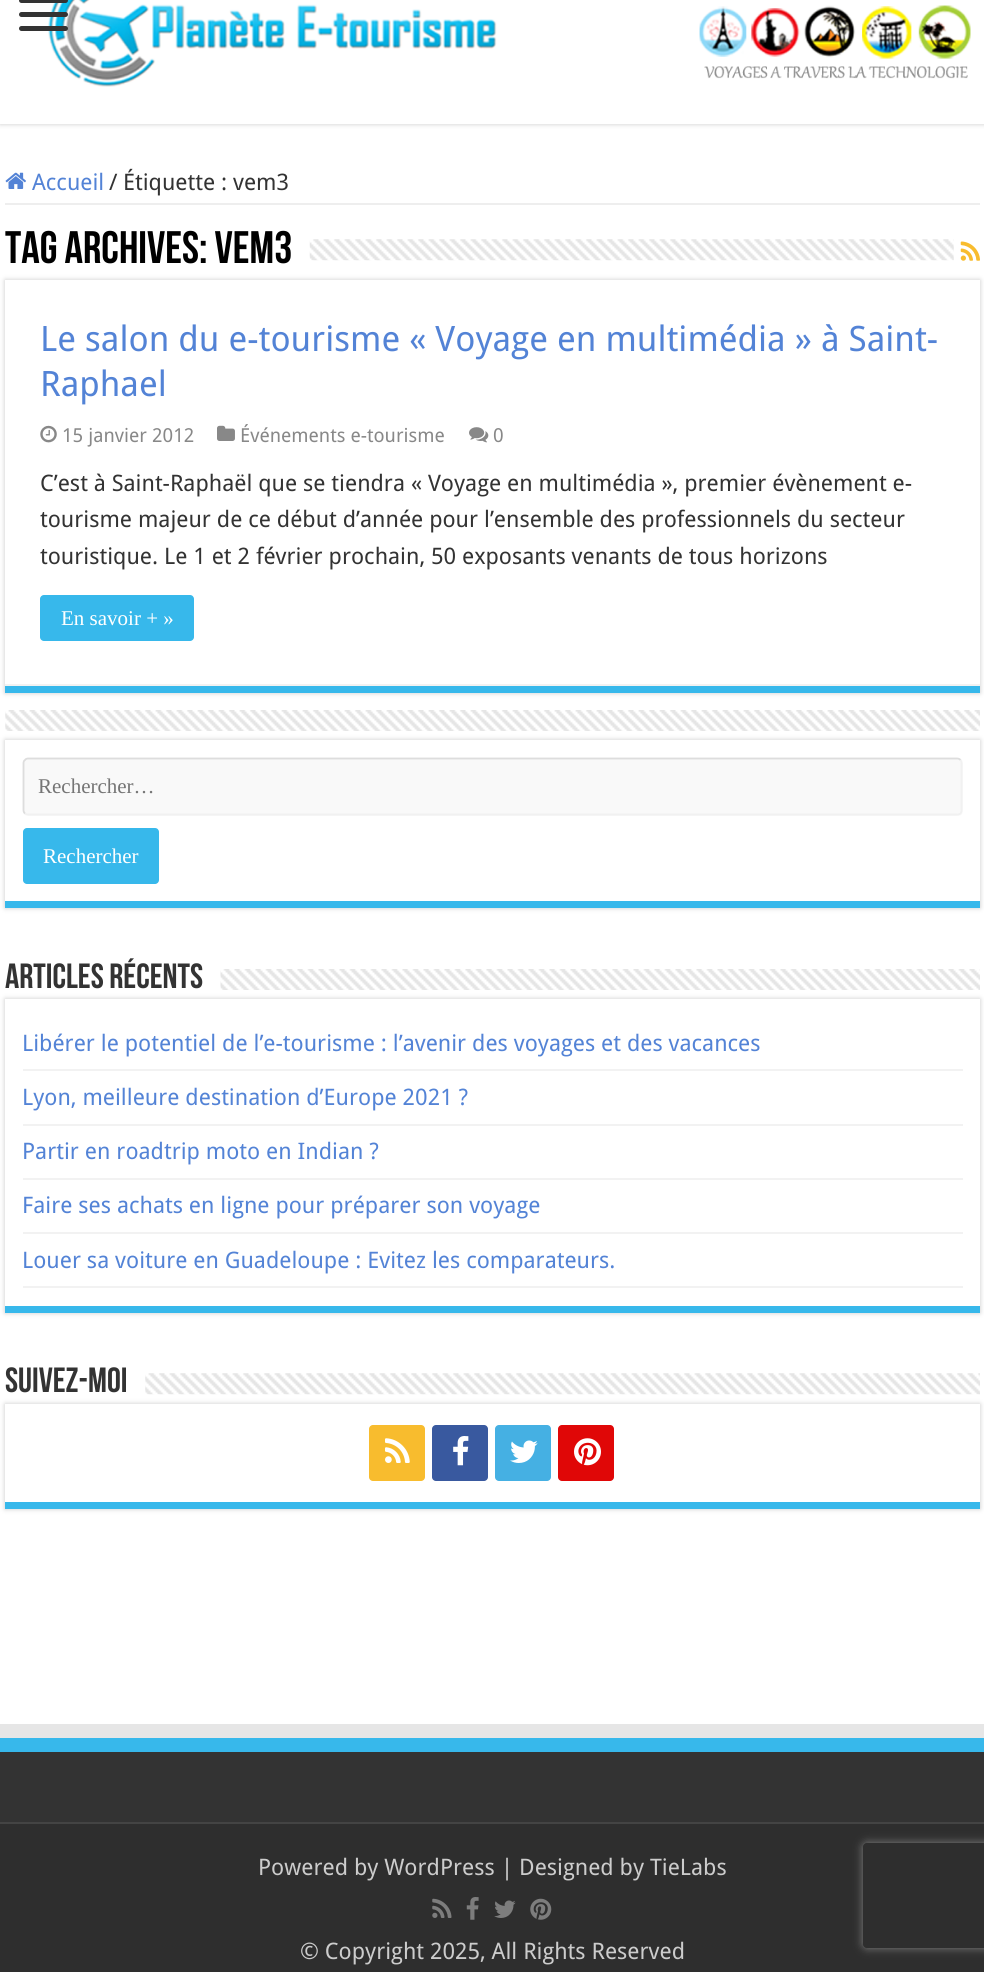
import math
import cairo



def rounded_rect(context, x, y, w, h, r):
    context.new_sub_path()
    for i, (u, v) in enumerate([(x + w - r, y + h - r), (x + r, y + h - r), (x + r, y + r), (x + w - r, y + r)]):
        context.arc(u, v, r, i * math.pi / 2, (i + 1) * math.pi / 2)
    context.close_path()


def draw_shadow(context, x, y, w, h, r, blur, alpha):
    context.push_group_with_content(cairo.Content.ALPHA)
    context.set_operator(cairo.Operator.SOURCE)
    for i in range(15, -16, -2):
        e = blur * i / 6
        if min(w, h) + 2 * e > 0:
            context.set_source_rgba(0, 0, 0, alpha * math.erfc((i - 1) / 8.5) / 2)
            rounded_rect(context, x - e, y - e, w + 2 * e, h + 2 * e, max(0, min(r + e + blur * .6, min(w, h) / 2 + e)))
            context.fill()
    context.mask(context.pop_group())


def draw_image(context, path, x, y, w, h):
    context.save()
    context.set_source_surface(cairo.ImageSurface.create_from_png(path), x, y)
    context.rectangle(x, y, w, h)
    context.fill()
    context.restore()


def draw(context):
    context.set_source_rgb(1, 1, 1)
    context.paint()
    context.save()
    context.rectangle(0, 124, 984, 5)
    context.clip()
    context.set_source_rgb(202 / 255, 202 / 255, 202 / 255)
    draw_shadow(context, 0, -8, 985, 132, 0, 2.5, 1)
    context.restore()
    draw_image(context, "images/1.png", 48, 0, 923, 87)
    context.set_source_rgb(51 / 255, 51 / 255, 51 / 255)
    rounded_rect(context, 19, -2, 49, 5, 2.5)
    context.fill()
    rounded_rect(context, 19, 12, 49, 5, 2.5)
    context.fill()
    rounded_rect(context, 19, 26, 49, 5, 2.5)
    context.fill()
    context.set_source_rgb(238 / 255, 238 / 255, 238 / 255)
    context.rectangle(5, 203, 975, 2)
    context.fill()
    draw_image(context, "images/2.png", 5, 172, 21, 17)
    draw_image(context, "images/3.png", 309, 239, 645, 22)
    draw_image(context, "images/4.png", 960, 241, 20, 20)
    context.set_source_rgb(202 / 255, 202 / 255, 202 / 255)
    draw_shadow(context, 5, 280, 975, 413, 0, 2.5, 1)
    context.set_source_rgb(1, 1, 1)
    context.rectangle(5, 280, 975, 404)
    context.fill()
    context.set_source_rgb(55 / 255, 184 / 255, 235 / 255)
    context.rectangle(5, 686, 975, 7)
    context.fill()
    context.set_source_rgb(242 / 255, 242 / 255, 242 / 255)
    context.rectangle(5, 684, 975, 2)
    context.fill()
    draw_image(context, "images/5.png", 40, 425, 17, 18)
    draw_image(context, "images/6.png", 217, 425, 18, 16)
    draw_image(context, "images/7.png", 469, 427, 20, 16)
    context.set_source_rgb(55 / 255, 184 / 255, 235 / 255)
    rounded_rect(context, 40, 595, 154, 46, 4)
    context.fill()
    draw_image(context, "images/8.png", 5, 710, 975, 21)
    context.set_source_rgb(202 / 255, 202 / 255, 202 / 255)
    draw_shadow(context, 5, 740, 975, 168, 0, 2.5, 1)
    context.set_source_rgb(1, 1, 1)
    context.rectangle(5, 740, 975, 161)
    context.fill()
    context.set_source_rgb(55 / 255, 184 / 255, 235 / 255)
    context.rectangle(5, 901, 975, 7)
    context.fill()
    context.set_source_rgb(249 / 255, 249 / 255, 249 / 255)
    rounded_rect(context, 23, 758, 940, 58, 5)
    context.fill()
    context.new_path()
    context.move_to(960.5, 760)
    context.curve_to(961, 760.5, 961.5, 762, 961.5, 763)
    context.line_to(961.5, 810)
    context.curve_to(961.5, 811.5, 961, 812.5, 960.5, 813.5)
    context.curve_to(959.5, 814, 958.5, 814.5, 957, 814.5)
    context.line_to(28, 814.5)
    context.curve_to(27, 814.5, 25.5, 814, 25, 813.5)
    context.set_source_rgb(241 / 255, 241 / 255, 241 / 255)
    context.set_line_width(1.8)
    context.stroke()
    context.new_path()
    context.move_to(25, 813.5)
    context.curve_to(24, 812.5, 23.5, 811.5, 23.5, 810)
    context.line_to(23.5, 763)
    context.curve_to(23.5, 762, 24, 760.5, 25, 760)
    context.curve_to(25.5, 759, 27, 758.5, 28, 758.5)
    context.line_to(957, 758.5)
    context.curve_to(958.5, 758.5, 959.5, 759, 960.5, 760)
    context.set_source_rgb(221 / 255, 221 / 255, 221 / 255)
    context.stroke()
    context.set_source_rgb(55 / 255, 184 / 255, 235 / 255)
    rounded_rect(context, 23, 828, 136, 56, 4)
    context.fill()
    draw_image(context, "images/9.png", 220, 969, 760, 21)
    context.set_source_rgb(202 / 255, 202 / 255, 202 / 255)
    draw_shadow(context, 5, 999, 975, 314, 0, 2.5, 1)
    context.set_source_rgb(1, 1, 1)
    context.rectangle(5, 999, 975, 307)
    context.fill()
    context.set_source_rgb(55 / 255, 184 / 255, 235 / 255)
    context.rectangle(5, 1306, 975, 7)
    context.fill()
    context.set_source_rgb(242 / 255, 242 / 255, 242 / 255)
    context.rectangle(23, 1069, 940, 2)
    context.fill()
    context.rectangle(23, 1124, 940, 2)
    context.fill()
    context.rectangle(23, 1178, 940, 2)
    context.fill()
    context.rectangle(23, 1232, 940, 2)
    context.fill()
    context.rectangle(23, 1286, 940, 2)
    context.fill()
    draw_image(context, "images/10.png", 145, 1373, 835, 22)
    context.set_source_rgb(202 / 255, 202 / 255, 202 / 255)
    draw_shadow(context, 5, 1404, 975, 105, 0, 2.5, 1)
    context.set_source_rgb(1, 1, 1)
    context.rectangle(5, 1404, 975, 98)
    context.fill()
    context.set_source_rgb(55 / 255, 184 / 255, 235 / 255)
    context.rectangle(5, 1502, 975, 7)
    context.fill()
    context.set_source_rgb(248 / 255, 188 / 255, 46 / 255)
    rounded_rect(context, 369, 1425, 56, 56, 4)
    context.fill()
    draw_image(context, "images/11.png", 385, 1438, 25, 25)
    context.set_source_rgb(57 / 255, 89 / 255, 159 / 255)
    rounded_rect(context, 432, 1425, 56, 56, 4)
    context.fill()
    draw_image(context, "images/12.png", 453, 1436, 16, 30)
    context.set_source_rgb(69 / 255, 176 / 255, 227 / 255)
    rounded_rect(context, 495, 1425, 56, 56, 4)
    context.fill()
    draw_image(context, "images/13.png", 510, 1440, 28, 23)
    context.set_source_rgb(224 / 255, 7 / 255, 7 / 255)
    rounded_rect(context, 558, 1425, 56, 56, 4)
    context.fill()
    draw_image(context, "images/14.png", 574, 1438, 27, 28)
    context.set_source_rgb(230 / 255, 230 / 255, 230 / 255)
    context.rectangle(0, 1724, 984, 14)
    context.fill()
    context.set_source_rgb(51 / 255, 51 / 255, 51 / 255)
    context.rectangle(0, 1752, 984, 70)
    context.fill()
    context.set_source_rgb(55 / 255, 184 / 255, 235 / 255)
    context.rectangle(0, 1738, 984, 14)
    context.fill()
    context.set_source_rgb(46 / 255, 46 / 255, 46 / 255)
    context.rectangle(0, 1824, 984, 148)
    context.fill()
    context.set_source_rgb(68 / 255, 68 / 255, 68 / 255)
    context.rectangle(0, 1822, 984, 2)
    context.fill()
    draw_image(context, "images/15.png", 432, 1898, 20, 20)
    draw_image(context, "images/16.png", 466, 1897, 13, 23)
    draw_image(context, "images/17.png", 494, 1900, 22, 18)
    draw_image(context, "images/18.png", 530, 1898, 22, 22)
    context.save()
    context.set_fill_rule(cairo.FillRule.EVEN_ODD)
    context.new_path()
    context.move_to(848, 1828)
    context.line_to(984, 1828)
    context.line_to(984, 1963)
    context.line_to(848, 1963)
    context.close_path()
    context.move_to(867, 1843)
    context.line_to(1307, 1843)
    context.curve_to(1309, 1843, 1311, 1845, 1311, 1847)
    context.line_to(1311, 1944)
    context.curve_to(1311, 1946, 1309, 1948, 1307, 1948)
    context.line_to(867, 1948)
    context.curve_to(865, 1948, 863, 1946, 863, 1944)
    context.line_to(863, 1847)
    context.curve_to(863, 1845, 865, 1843, 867, 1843)
    context.close_path()
    context.clip()
    context.set_source_rgb(128 / 255, 128 / 255, 128 / 255)
    draw_shadow(context, 863, 1843, 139, 105, 4, 4.5, 1)
    context.restore()
    context.select_font_face("Droid Sans")
    context.set_font_size(22.75)
    context.set_source_rgb(83 / 255, 131 / 255, 214 / 255)
    context.move_to(32, 190)
    context.show_text("Accueil")
    context.set_source_rgb(51 / 255, 51 / 255, 51 / 255)
    context.move_to(109, 190)
    context.show_text("/")
    context.move_to(123, 190)
    context.show_text("Étiquette : vem3")
    context.select_font_face("Bebas Neue", cairo.FontSlant.NORMAL, cairo.FontWeight.BOLD)
    context.set_font_size(45.5)
    context.set_source_rgb(0, 0, 0)
    context.move_to(5, 263)
    context.show_text("Tag Archives: vem3")
    context.select_font_face("Droid Sans")
    context.set_font_size(35)
    context.set_source_rgb(83 / 255, 131 / 255, 214 / 255)
    context.move_to(40, 351)
    context.show_text("Le salon du e-tourisme « Voyage en multimédia » à Saint-")
    context.move_to(40, 396)
    context.show_text("Raphael")
    context.set_font_size(19.25)
    context.set_source_rgb(136 / 255, 136 / 255, 136 / 255)
    context.move_to(62, 442)
    context.show_text("15 janvier 2012")
    context.move_to(240, 442)
    context.show_text("Événements e-tourisme")
    context.move_to(493, 442)
    context.show_text("0")
    context.set_font_size(22.75)
    context.set_source_rgb(51 / 255, 51 / 255, 51 / 255)
    context.move_to(40, 491)
    context.show_text("C’est à Saint-Raphaël que se tiendra « Voyage en multimédia », premier évènement e-")
    context.move_to(40, 527)
    context.show_text("tourisme majeur de ce début d’année pour l’ensemble des professionnels du secteur")
    context.move_to(40, 564)
    context.show_text("touristique. Le 1 et 2 février prochain, 50 exposants venants de tous horizons")
    context.select_font_face("Liberation Serif")
    context.set_font_size(21)
    context.set_source_rgb(1, 1, 1)
    context.move_to(61, 625)
    context.show_text("En savoir + »")
    context.set_source_rgb(117 / 255, 117 / 255, 117 / 255)
    context.move_to(38, 793)
    context.show_text("Rechercher…")
    context.set_source_rgb(1, 1, 1)
    context.move_to(43, 863)
    context.show_text("Rechercher")
    context.select_font_face("Bebas Neue", cairo.FontSlant.NORMAL, cairo.FontWeight.BOLD)
    context.set_font_size(35)
    context.set_source_rgb(51 / 255, 51 / 255, 51 / 255)
    context.move_to(5, 988)
    context.show_text("Articles récents")
    context.select_font_face("Droid Sans")
    context.set_font_size(22.75)
    context.set_source_rgb(83 / 255, 131 / 255, 214 / 255)
    context.move_to(22, 1051)
    context.show_text("Libérer le potentiel de l’e-tourisme : l’avenir des voyages et des vacances")
    context.move_to(22, 1105)
    context.show_text("Lyon, meilleure destination d’Europe 2021 ?")
    context.move_to(22, 1159)
    context.show_text("Partir en roadtrip moto en Indian ?")
    context.move_to(22, 1213)
    context.show_text("Faire ses achats en ligne pour préparer son voyage")
    context.move_to(22, 1268)
    context.show_text("Louer sa voiture en Guadeloupe : Evitez les comparateurs.")
    context.select_font_face("Bebas Neue", cairo.FontSlant.NORMAL, cairo.FontWeight.BOLD)
    context.set_font_size(35)
    context.set_source_rgb(51 / 255, 51 / 255, 51 / 255)
    context.move_to(5, 1392)
    context.show_text("Suivez-moi")
    context.select_font_face("Droid Sans")
    context.set_font_size(22.75)
    context.set_source_rgb(204 / 255, 204 / 255, 204 / 255)
    context.move_to(258, 1875)
    context.show_text("Powered by WordPress | Designed by TieLabs")
    context.move_to(300, 1959)
    context.show_text("© Copyright 2025, All Rights Reserved")


surface = cairo.ImageSurface(cairo.Format.RGB24, 984, 1972)
context = cairo.Context(surface)
options = cairo.FontOptions()
options.set_hint_metrics(cairo.HintMetrics.OFF)
options.set_hint_style(cairo.HintStyle.NONE)
context.set_font_options(options)
context.set_miter_limit(4)
draw(context)
surface.write_to_png("out.png")
